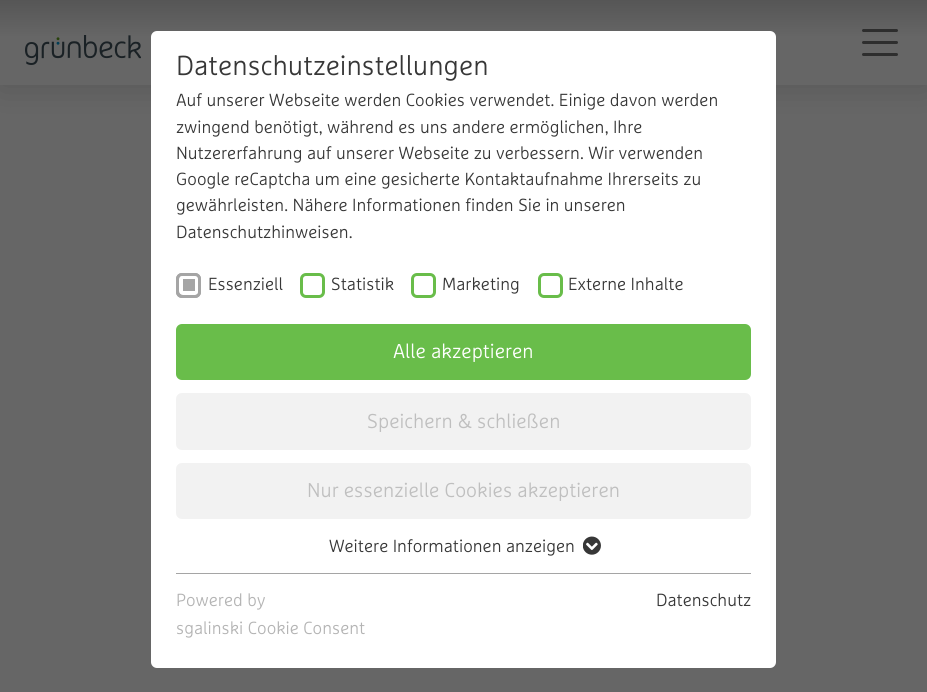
import math
import cairo



def rounded_rect(context, x, y, w, h, r):
    context.new_sub_path()
    for i, (u, v) in enumerate([(x + w - r, y + h - r), (x + r, y + h - r), (x + r, y + r), (x + w - r, y + r)]):
        context.arc(u, v, r, i * math.pi / 2, (i + 1) * math.pi / 2)
    context.close_path()


def draw_shadow(context, x, y, w, h, r, blur, alpha):
    context.push_group_with_content(cairo.Content.ALPHA)
    context.set_operator(cairo.Operator.SOURCE)
    for i in range(15, -16, -2):
        e = blur * i / 6
        if min(w, h) + 2 * e > 0:
            context.set_source_rgba(0, 0, 0, alpha * math.erfc((i - 1) / 8.5) / 2)
            rounded_rect(context, x - e, y - e, w + 2 * e, h + 2 * e, max(0, min(r + e + blur * .6, min(w, h) / 2 + e)))
            context.fill()
    context.mask(context.pop_group())


def draw_image(context, path, x, y, w, h):
    context.save()
    context.set_source_surface(cairo.ImageSurface.create_from_png(path), x, y)
    context.rectangle(x, y, w, h)
    context.fill()
    context.restore()


def draw(context):
    context.set_source_rgb(1, 1, 1)
    context.paint()
    context.set_source_rgb(102 / 255, 102 / 255, 102 / 255)
    context.new_path()
    context.move_to(464, -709)
    context.curve_to(624, -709, 780, -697, 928, -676)
    context.line_to(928, 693)
    context.line_to(0, 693)
    context.line_to(0, -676)
    context.curve_to(148, -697, 304, -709, 464, -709)
    context.close_path()
    context.fill()
    context.set_source_rgb(0, 0, 0)
    draw_shadow(context, 0, 0, 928, 85, 0, 19, 0.16)
    gradient = cairo.LinearGradient(464, 0, 464, 85)
    gradient.add_color_stop_rgba(0, 86 / 255, 86 / 255, 86 / 255, 1)
    gradient.add_color_stop_rgba(0.44, 102 / 255, 102 / 255, 102 / 255, 1)
    context.set_source(gradient)
    context.rectangle(0, 0, 927, 85)
    context.fill()
    draw_image(context, "images/1.png", 25, 35, 116, 30)
    context.new_path()
    context.move_to(863.5, 30.5)
    context.line_to(896.5, 30.5)
    context.move_to(863.5, 42.5)
    context.line_to(896.5, 42.5)
    context.move_to(863.5, 54.5)
    context.line_to(896.5, 54.5)
    context.set_source_rgba(0, 0, 0, 0.55)
    context.set_line_width(3)
    context.set_line_cap(cairo.LineCap.ROUND)
    context.stroke()
    context.set_source_rgb(1, 1, 1)
    rounded_rect(context, 151, 31, 625, 637, 6)
    context.fill()
    context.set_source_rgb(165 / 255, 165 / 255, 165 / 255)
    rounded_rect(context, 176, 273, 25, 25, 6)
    context.fill()
    rounded_rect(context, 181, 277, 16, 16, 2)
    context.set_source_rgb(1, 1, 1)
    context.set_line_width(4)
    context.set_line_cap(cairo.LineCap.BUTT)
    context.stroke()
    rounded_rect(context, 177.5, 274.5, 22, 22, 4.5)
    context.set_source_rgb(165 / 255, 165 / 255, 165 / 255)
    context.set_line_width(3)
    context.stroke()
    rounded_rect(context, 301.5, 274.5, 22, 22, 4.5)
    context.set_source_rgb(105 / 255, 189 / 255, 74 / 255)
    context.stroke()
    rounded_rect(context, 412.5, 274.5, 22, 22, 4.5)
    context.stroke()
    rounded_rect(context, 539.5, 274.5, 22, 22, 4.5)
    context.stroke()
    rounded_rect(context, 176, 324, 575, 56, 6)
    context.fill()
    context.set_source_rgb(242 / 255, 242 / 255, 242 / 255)
    rounded_rect(context, 176, 393, 575, 57, 6)
    context.fill()
    rounded_rect(context, 176, 463, 575, 56, 6)
    context.fill()
    draw_image(context, "images/2.png", 583, 536, 18, 19)
    context.set_source_rgb(165 / 255, 165 / 255, 165 / 255)
    context.rectangle(176, 573, 575, 1)
    context.fill()
    context.select_font_face("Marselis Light")
    context.set_font_size(27.5)
    context.set_source_rgb(55 / 255, 55 / 255, 55 / 255)
    context.move_to(176, 75)
    context.show_text("Datenschutzeinstellungen")
    context.set_font_size(17.5)
    context.move_to(176, 106)
    context.show_text("Auf unserer Webseite werden Cookies verwendet. Einige davon werden")
    context.move_to(176, 133)
    context.show_text("zwingend benötigt, während es uns andere ermöglichen, Ihre")
    context.move_to(176, 159)
    context.show_text("Nutzererfahrung auf unserer Webseite zu verbessern. Wir verwenden")
    context.move_to(176, 185)
    context.show_text("Google reCaptcha um eine gesicherte Kontaktaufnahme Ihrerseits zu")
    context.move_to(176, 211)
    context.show_text("gewährleisten. Nähere Informationen finden Sie in unseren")
    context.move_to(176, 238)
    context.show_text("Datenschutzhinweisen.")
    context.move_to(208, 290)
    context.show_text("Essenziell")
    context.move_to(331, 290)
    context.show_text("Statistik")
    context.move_to(442, 290)
    context.show_text("Marketing")
    context.move_to(568, 290)
    context.show_text("Externe Inhalte")
    context.set_font_size(20)
    context.set_source_rgb(1, 1, 1)
    context.move_to(393, 358)
    context.show_text("Alle akzeptieren")
    context.set_source_rgb(191 / 255, 191 / 255, 191 / 255)
    context.move_to(367, 428)
    context.show_text("Speichern & schließen")
    context.move_to(307, 497)
    context.show_text("Nur essenzielle Cookies akzeptieren")
    context.set_font_size(17.5)
    context.set_source_rgb(55 / 255, 55 / 255, 55 / 255)
    context.move_to(329, 552)
    context.show_text("Weitere Informationen anzeigen")
    context.set_source_rgb(180 / 255, 180 / 255, 180 / 255)
    context.move_to(176, 606)
    context.show_text("Powered by")
    context.move_to(176, 634)
    context.show_text("sgalinski Cookie Consent")
    context.set_source_rgb(55 / 255, 55 / 255, 55 / 255)
    context.move_to(656, 606)
    context.show_text("Datenschutz")


surface = cairo.ImageSurface(cairo.Format.RGB24, 927, 692)
context = cairo.Context(surface)
options = cairo.FontOptions()
options.set_hint_metrics(cairo.HintMetrics.OFF)
options.set_hint_style(cairo.HintStyle.NONE)
context.set_font_options(options)
context.set_miter_limit(4)
draw(context)
surface.write_to_png("out.png")
